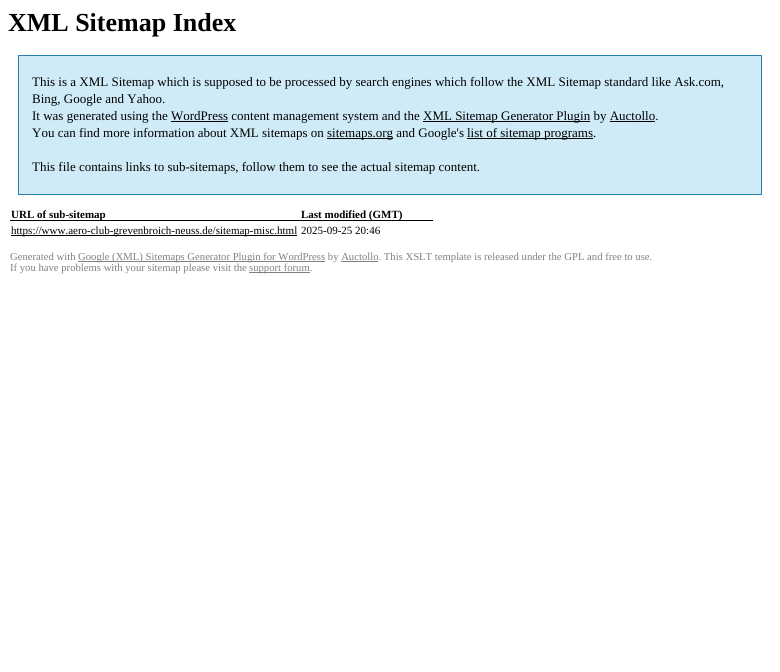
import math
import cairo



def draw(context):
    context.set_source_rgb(1, 1, 1)
    context.paint()
    context.set_source_rgb(207 / 255, 235 / 255, 247 / 255)
    context.rectangle(18.5, 55.5, 743, 139)
    context.fill_preserve()
    context.set_source_rgb(37 / 255, 128 / 255, 178 / 255)
    context.set_line_width(1)
    context.stroke()
    context.set_source_rgb(0, 0, 0)
    context.rectangle(423, 121, 167, 1)
    context.fill()
    context.rectangle(171, 121, 57, 1)
    context.fill()
    context.rectangle(610, 121, 45, 1)
    context.fill()
    context.rectangle(327, 138, 66, 1)
    context.fill()
    context.rectangle(467, 138, 126, 1)
    context.fill()
    context.rectangle(10, 220, 423, 1)
    context.fill()
    context.rectangle(11, 235, 286, 1)
    context.fill()
    context.set_source_rgb(128 / 255, 128 / 255, 128 / 255)
    context.rectangle(78, 261, 247, 1)
    context.fill()
    context.rectangle(341, 261, 37, 1)
    context.fill()
    context.rectangle(249, 272, 61, 1)
    context.fill()
    context.select_font_face("Liberation Serif", cairo.FontSlant.NORMAL, cairo.FontWeight.BOLD)
    context.set_font_size(26)
    context.set_source_rgb(0, 0, 0)
    context.move_to(8, 31)
    context.show_text("XML Sitemap Index")
    context.select_font_face("Liberation Serif")
    context.set_font_size(13)
    context.move_to(32, 86)
    context.show_text("This is a XML Sitemap which is supposed to be processed by search engines which follow the XML Sitemap standard like Ask.com,")
    context.move_to(32, 103)
    context.show_text("Bing, Google and Yahoo.")
    context.move_to(32, 120)
    context.show_text("It was generated using the WordPress content management system and the")
    context.move_to(423, 120)
    context.show_text("XML Sitemap Generator Plugin by Auctollo.")
    context.move_to(32, 137)
    context.show_text("You can find more information about XML sitemaps on")
    context.move_to(327, 137)
    context.show_text("sitemaps.org and Google's")
    context.move_to(467, 137)
    context.show_text("list of sitemap programs.")
    context.move_to(32, 171)
    context.show_text("This file contains links to sub-sitemaps, follow them to see the actual sitemap content.")
    context.select_font_face("Liberation Serif", cairo.FontSlant.NORMAL, cairo.FontWeight.BOLD)
    context.set_font_size(11)
    context.move_to(11, 218)
    context.show_text("URL of sub-sitemap")
    context.move_to(301, 218)
    context.show_text("Last modified (GMT)")
    context.select_font_face("Liberation Serif")
    context.move_to(11, 234)
    context.show_text("https://www.aero-club-grevenbroich-neuss.de/sitemap-misc.html")
    context.move_to(301, 234)
    context.show_text("2025-09-25 20:46")
    context.set_font_size(10.67)
    context.set_source_rgb(128 / 255, 128 / 255, 128 / 255)
    context.move_to(10, 260)
    context.show_text("Generated with")
    context.move_to(78, 260)
    context.show_text("Google (XML) Sitemaps Generator Plugin for WordPress by Auctollo. This XSLT template is released under the GPL and free to use.")
    context.move_to(10, 271)
    context.show_text("If you have problems with your sitemap please visit the")
    context.move_to(249, 271)
    context.show_text("support forum.")


surface = cairo.ImageSurface(cairo.Format.RGB24, 780, 672)
context = cairo.Context(surface)
options = cairo.FontOptions()
options.set_hint_metrics(cairo.HintMetrics.OFF)
options.set_hint_style(cairo.HintStyle.NONE)
context.set_font_options(options)
context.set_miter_limit(4)
draw(context)
surface.write_to_png("out.png")
